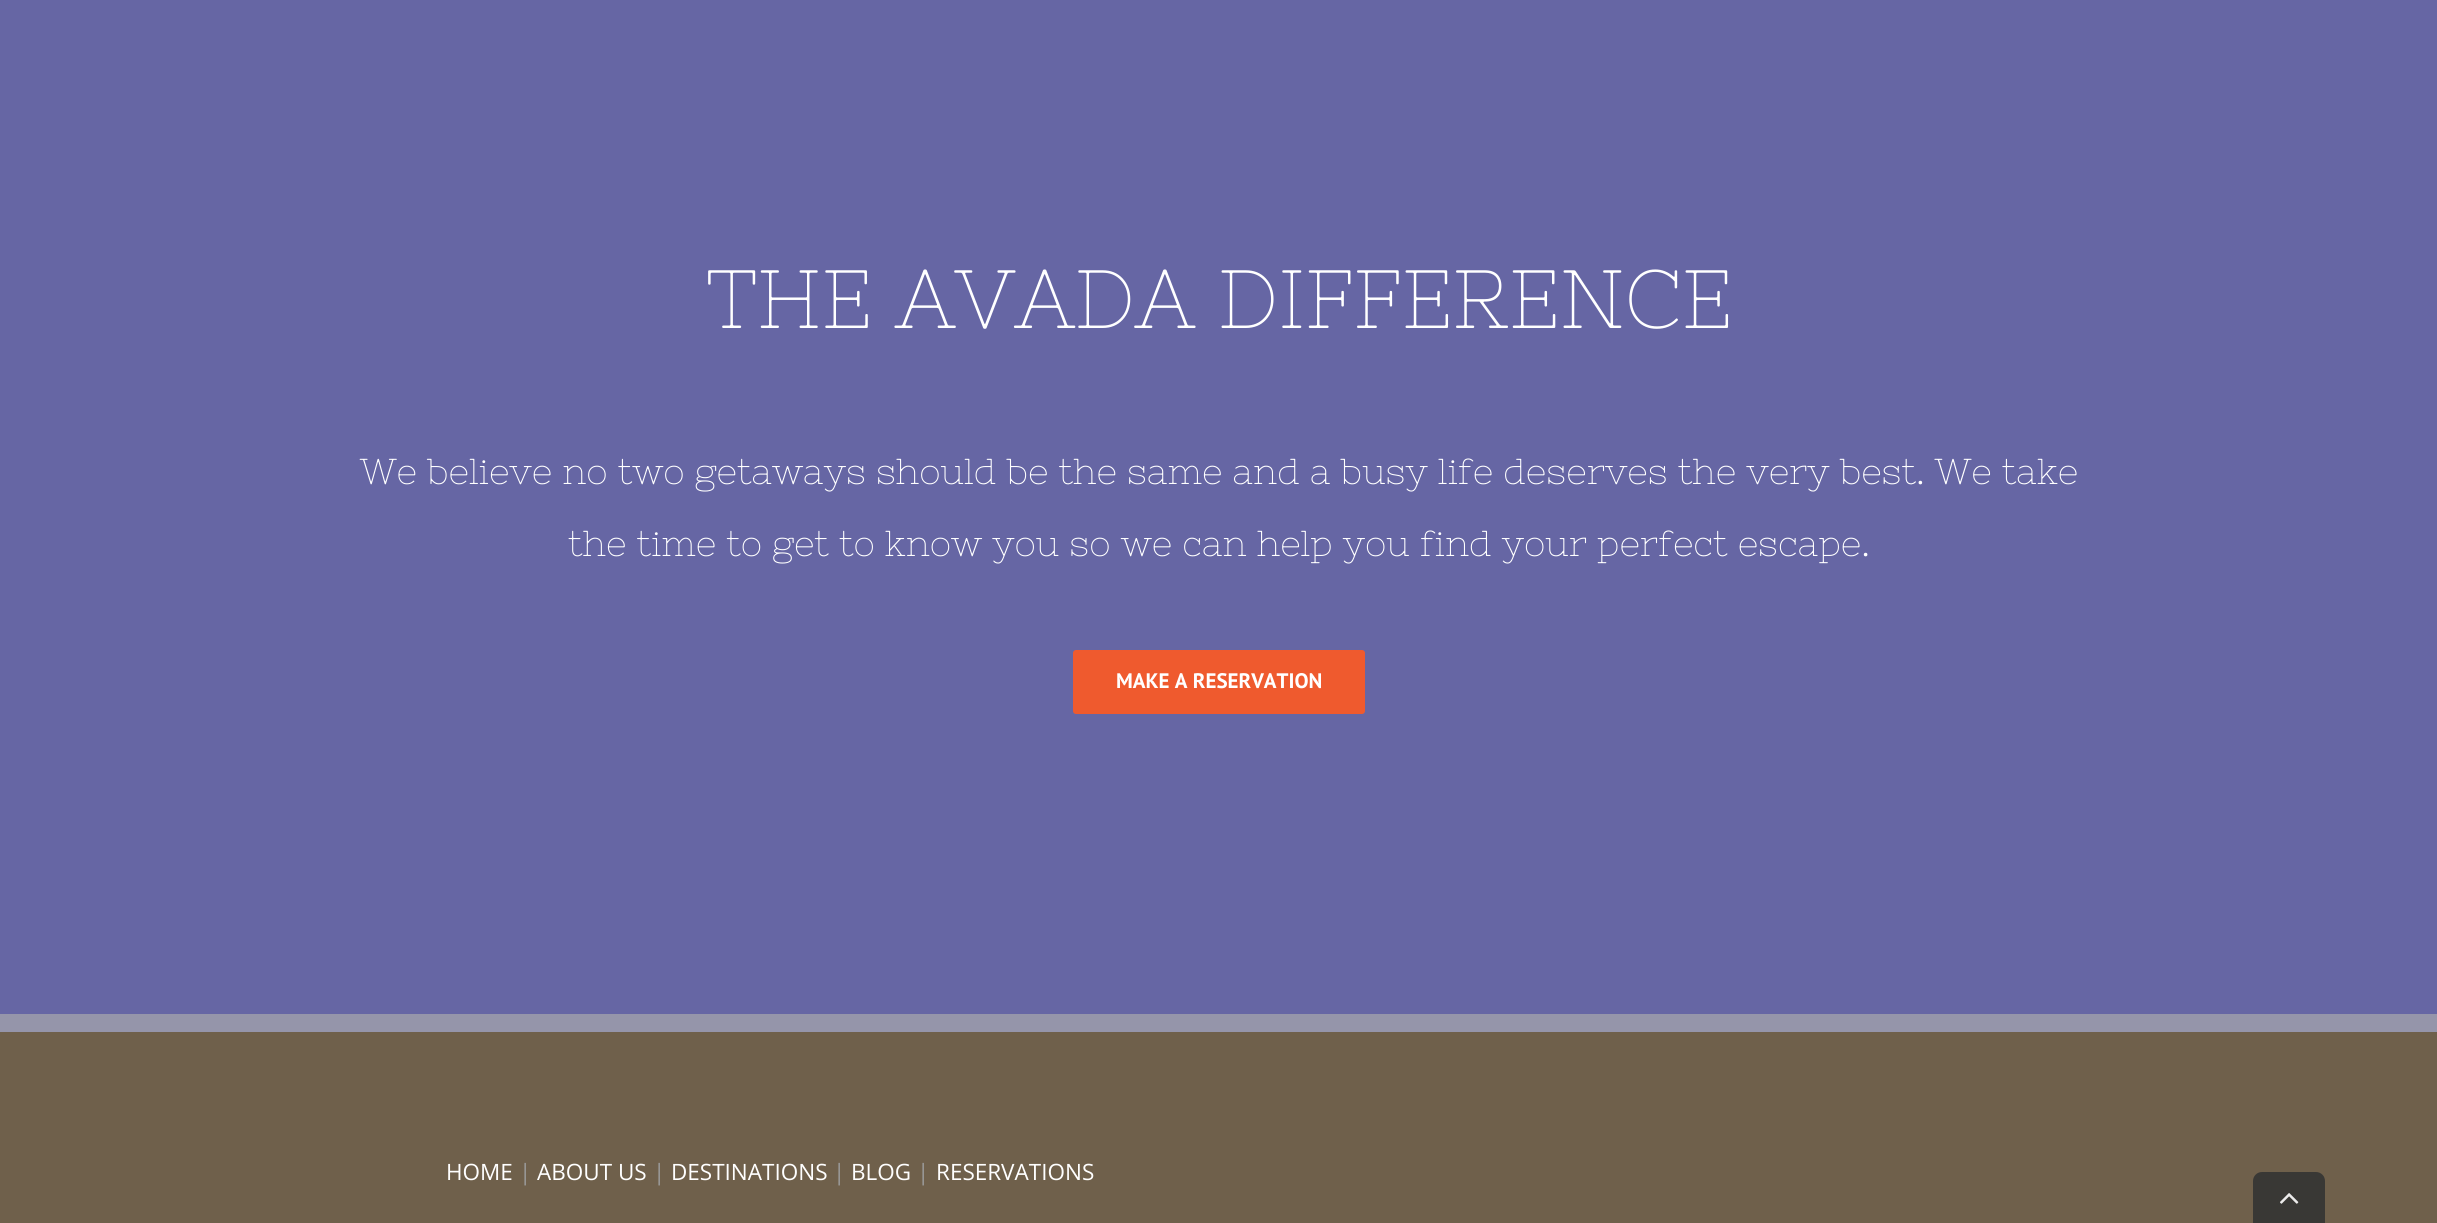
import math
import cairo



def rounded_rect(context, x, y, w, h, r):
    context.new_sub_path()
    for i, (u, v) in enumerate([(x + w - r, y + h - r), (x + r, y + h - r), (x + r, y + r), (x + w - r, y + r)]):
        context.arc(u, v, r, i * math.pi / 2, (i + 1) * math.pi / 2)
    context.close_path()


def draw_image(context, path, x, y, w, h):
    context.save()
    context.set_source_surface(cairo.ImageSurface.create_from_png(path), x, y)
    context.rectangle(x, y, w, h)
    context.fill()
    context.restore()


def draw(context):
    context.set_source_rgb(111 / 255, 96 / 255, 75 / 255)
    context.paint()
    context.set_source_rgb(102 / 255, 102 / 255, 164 / 255)
    context.rectangle(0, 0, 2437, 1014)
    context.fill()
    context.set_source_rgb(239 / 255, 90 / 255, 46 / 255)
    rounded_rect(context, 1073, 650, 292, 64, 3)
    context.fill()
    context.set_source_rgb(149 / 255, 149 / 255, 170 / 255)
    context.rectangle(0, 1014, 2437, 18)
    context.fill()
    context.set_source_rgb(57 / 255, 56 / 255, 53 / 255)
    context.new_path()
    context.move_to(2262, 1172)
    context.line_to(2316, 1172)
    context.curve_to(2321, 1172, 2325, 1176, 2325, 1181)
    context.line_to(2325, 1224)
    context.line_to(2253, 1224)
    context.line_to(2253, 1181)
    context.curve_to(2253, 1176, 2257, 1172, 2262, 1172)
    context.close_path()
    context.fill()
    draw_image(context, "images/1.png", 2280, 1193, 19, 11)
    context.select_font_face("Nixie One")
    context.set_font_size(82.5)
    context.set_source_rgb(1, 1, 1)
    context.move_to(706, 328)
    context.show_text("THE AVADA DIFFERENCE")
    context.set_font_size(36)
    context.move_to(360, 484)
    context.show_text("We believe no two getaways should be the same and a busy life deserves the very best. We take")
    context.move_to(568, 556)
    context.show_text("the time to get to know you so we can help you find your perfect escape.")
    context.select_font_face("PT Sans", cairo.FontSlant.NORMAL, cairo.FontWeight.BOLD)
    context.set_font_size(21)
    context.move_to(1116, 688)
    context.show_text("MAKE A RESERVATION")
    context.select_font_face("Open Sans")
    context.set_font_size(22.5)
    context.move_to(446, 1180)
    context.show_text("HOME")
    context.set_source_rgb(153 / 255, 153 / 255, 153 / 255)
    context.move_to(519, 1180)
    context.show_text("|")
    context.set_source_rgb(1, 1, 1)
    context.move_to(537, 1180)
    context.show_text("ABOUT US")
    context.set_source_rgb(153 / 255, 153 / 255, 153 / 255)
    context.move_to(653, 1180)
    context.show_text("|")
    context.set_source_rgb(1, 1, 1)
    context.move_to(671, 1180)
    context.show_text("DESTINATIONS")
    context.set_source_rgb(153 / 255, 153 / 255, 153 / 255)
    context.move_to(833, 1180)
    context.show_text("|")
    context.set_source_rgb(1, 1, 1)
    context.move_to(851, 1180)
    context.show_text("BLOG")
    context.set_source_rgb(153 / 255, 153 / 255, 153 / 255)
    context.move_to(917, 1180)
    context.show_text("|")
    context.set_source_rgb(1, 1, 1)
    context.move_to(936, 1180)
    context.show_text("RESERVATIONS")


surface = cairo.ImageSurface(cairo.Format.RGB24, 2437, 1223)
context = cairo.Context(surface)
options = cairo.FontOptions()
options.set_hint_metrics(cairo.HintMetrics.OFF)
options.set_hint_style(cairo.HintStyle.NONE)
context.set_font_options(options)
context.set_miter_limit(4)
draw(context)
surface.write_to_png("out.png")
